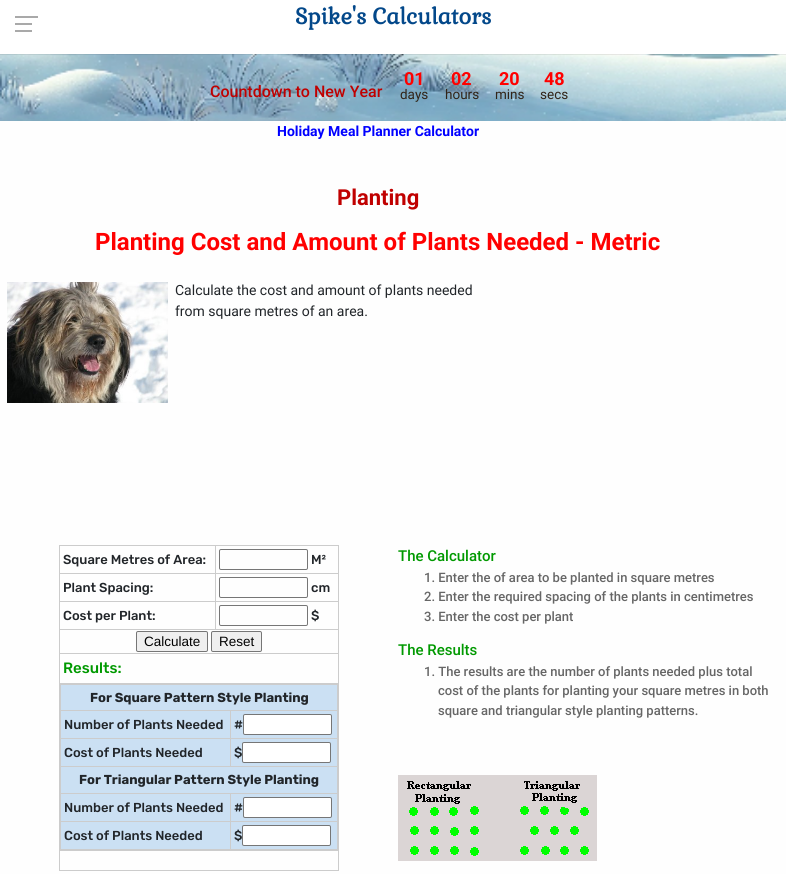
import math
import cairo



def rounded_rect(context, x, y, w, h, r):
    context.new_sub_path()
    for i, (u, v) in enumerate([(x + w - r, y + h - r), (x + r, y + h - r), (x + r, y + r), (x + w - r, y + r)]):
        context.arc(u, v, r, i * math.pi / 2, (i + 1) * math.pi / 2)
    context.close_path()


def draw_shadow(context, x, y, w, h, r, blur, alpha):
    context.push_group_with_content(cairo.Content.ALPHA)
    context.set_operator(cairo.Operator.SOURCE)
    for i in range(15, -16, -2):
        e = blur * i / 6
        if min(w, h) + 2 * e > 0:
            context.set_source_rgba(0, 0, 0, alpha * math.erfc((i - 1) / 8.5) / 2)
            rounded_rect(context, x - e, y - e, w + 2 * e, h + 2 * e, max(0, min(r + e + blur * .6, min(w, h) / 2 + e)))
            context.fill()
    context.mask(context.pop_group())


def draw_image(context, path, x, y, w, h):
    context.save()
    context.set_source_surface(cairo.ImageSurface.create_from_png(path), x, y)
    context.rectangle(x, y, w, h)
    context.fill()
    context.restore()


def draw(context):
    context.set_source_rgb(254 / 255, 254 / 255, 254 / 255)
    context.paint()
    draw_image(context, "images/1.png", 0, 54, 786, 67)
    context.set_source_rgb(0, 0, 0)
    draw_shadow(context, 0, 0, 786, 54, 0, 0.5, 0.3)
    context.set_source_rgb(1, 1, 1)
    context.rectangle(0, 0, 786, 54)
    context.fill()
    context.set_source_rgb(169 / 255, 169 / 255, 169 / 255)
    context.rectangle(15, 23, 17, 2)
    context.fill()
    context.rectangle(15, 16, 23, 2)
    context.fill()
    context.rectangle(15, 30, 17, 2)
    context.fill()
    draw_image(context, "images/2.png", 7, 282, 161, 121)
    context.set_source_rgb(204 / 255, 204 / 255, 204 / 255)
    context.rectangle(59, 545, 280, 1)
    context.fill()
    context.rectangle(338, 545, 1, 326)
    context.fill()
    context.rectangle(59, 870, 280, 1)
    context.fill()
    context.rectangle(59, 545, 1, 326)
    context.fill()
    context.rectangle(215, 573, 124, 1)
    context.fill()
    context.rectangle(215, 601, 124, 1)
    context.fill()
    context.rectangle(215, 629, 124, 1)
    context.fill()
    context.rectangle(215, 601, 1, 29)
    context.fill()
    context.rectangle(59, 601, 157, 1)
    context.fill()
    context.rectangle(215, 573, 1, 29)
    context.fill()
    context.rectangle(59, 573, 157, 1)
    context.fill()
    context.rectangle(215, 545, 1, 29)
    context.fill()
    rounded_rect(context, 219.5, 549.5, 88, 20, 1.5)
    context.set_source_rgb(118 / 255, 118 / 255, 118 / 255)
    context.set_line_width(1)
    context.stroke()
    rounded_rect(context, 219.5, 577.5, 88, 20, 1.5)
    context.stroke()
    context.set_source_rgb(204 / 255, 204 / 255, 204 / 255)
    context.rectangle(59, 629, 157, 1)
    context.fill()
    rounded_rect(context, 219.5, 605.5, 88, 20, 1.5)
    context.set_source_rgb(118 / 255, 118 / 255, 118 / 255)
    context.stroke()
    context.set_source_rgb(239 / 255, 239 / 255, 239 / 255)
    rounded_rect(context, 136.5, 631.5, 71, 20, 1.5)
    context.fill_preserve()
    context.set_source_rgb(118 / 255, 118 / 255, 118 / 255)
    context.stroke()
    context.set_source_rgb(239 / 255, 239 / 255, 239 / 255)
    rounded_rect(context, 211.5, 631.5, 50, 20, 1.5)
    context.fill_preserve()
    context.set_source_rgb(118 / 255, 118 / 255, 118 / 255)
    context.stroke()
    context.set_source_rgb(204 / 255, 204 / 255, 204 / 255)
    context.rectangle(59, 653, 280, 1)
    context.fill()
    context.rectangle(59, 683, 280, 1)
    context.fill()
    context.set_source_rgb(203 / 255, 224 / 255, 243 / 255)
    context.rectangle(61, 685, 276, 164)
    context.fill()
    context.set_source_rgb(204 / 255, 204 / 255, 204 / 255)
    context.rectangle(60, 684, 278, 1)
    context.fill()
    context.rectangle(230, 710, 108, 1)
    context.fill()
    context.rectangle(230, 738, 108, 1)
    context.fill()
    context.rectangle(60, 766, 278, 1)
    context.fill()
    context.rectangle(230, 793, 108, 1)
    context.fill()
    context.rectangle(230, 821, 108, 1)
    context.fill()
    context.rectangle(337, 821, 1, 29)
    context.fill()
    context.rectangle(337, 793, 1, 29)
    context.fill()
    context.rectangle(337, 766, 1, 28)
    context.fill()
    context.rectangle(337, 738, 1, 29)
    context.fill()
    context.rectangle(337, 710, 1, 29)
    context.fill()
    context.rectangle(337, 684, 1, 27)
    context.fill()
    context.rectangle(230, 738, 1, 29)
    context.fill()
    context.rectangle(60, 738, 171, 1)
    context.fill()
    context.rectangle(230, 710, 1, 29)
    context.fill()
    context.rectangle(60, 710, 171, 1)
    context.fill()
    context.rectangle(230, 849, 108, 1)
    context.fill()
    context.rectangle(230, 821, 1, 29)
    context.fill()
    context.rectangle(60, 821, 171, 1)
    context.fill()
    context.rectangle(230, 793, 1, 29)
    context.fill()
    context.rectangle(60, 793, 171, 1)
    context.fill()
    context.rectangle(60, 849, 171, 1)
    context.fill()
    context.rectangle(60, 821, 1, 29)
    context.fill()
    context.rectangle(60, 793, 1, 29)
    context.fill()
    context.rectangle(60, 766, 1, 28)
    context.fill()
    context.rectangle(60, 738, 1, 29)
    context.fill()
    context.rectangle(60, 710, 1, 29)
    context.fill()
    context.rectangle(60, 684, 1, 27)
    context.fill()
    context.set_source_rgb(1, 1, 1)
    rounded_rect(context, 243.5, 714.5, 88, 20, 1.5)
    context.fill_preserve()
    context.set_source_rgb(118 / 255, 118 / 255, 118 / 255)
    context.stroke()
    context.set_source_rgb(1, 1, 1)
    rounded_rect(context, 242.5, 742.5, 88, 20, 1.5)
    context.fill_preserve()
    context.set_source_rgb(118 / 255, 118 / 255, 118 / 255)
    context.stroke()
    context.set_source_rgb(1, 1, 1)
    rounded_rect(context, 243.5, 797.5, 88, 20, 1.5)
    context.fill_preserve()
    context.set_source_rgb(118 / 255, 118 / 255, 118 / 255)
    context.stroke()
    context.set_source_rgb(1, 1, 1)
    rounded_rect(context, 242.5, 825.5, 88, 20, 1.5)
    context.fill_preserve()
    context.set_source_rgb(118 / 255, 118 / 255, 118 / 255)
    context.stroke()
    context.set_source_rgb(204 / 255, 204 / 255, 204 / 255)
    context.rectangle(59, 850, 280, 1)
    context.fill()
    draw_image(context, "images/3.png", 398, 775, 199, 86)
    context.select_font_face("Gabriela", cairo.FontSlant.NORMAL, cairo.FontWeight.BOLD)
    context.set_font_size(22)
    context.set_source_rgb(3 / 255, 72 / 255, 138 / 255)
    context.move_to(295, 24)
    context.show_text("Spike's Calculators")
    context.select_font_face("Roboto Medium")
    context.set_font_size(16)
    context.set_source_rgb(192 / 255, 0, 0)
    context.move_to(210, 97)
    context.show_text("Countdown to New Year")
    context.select_font_face("Roboto", cairo.FontSlant.NORMAL, cairo.FontWeight.BOLD)
    context.set_font_size(18)
    context.set_source_rgb(1, 0, 0)
    context.move_to(404, 85)
    context.show_text("01")
    context.select_font_face("Roboto")
    context.set_font_size(13.5)
    context.set_source_rgb(49 / 255, 36 / 255, 24 / 255)
    context.move_to(400, 99)
    context.show_text("days")
    context.select_font_face("Roboto", cairo.FontSlant.NORMAL, cairo.FontWeight.BOLD)
    context.set_font_size(18)
    context.set_source_rgb(1, 0, 0)
    context.move_to(451, 85)
    context.show_text("02")
    context.select_font_face("Roboto")
    context.set_font_size(13.5)
    context.set_source_rgb(49 / 255, 36 / 255, 24 / 255)
    context.move_to(445, 99)
    context.show_text("hours")
    context.select_font_face("Roboto", cairo.FontSlant.NORMAL, cairo.FontWeight.BOLD)
    context.set_font_size(18)
    context.set_source_rgb(1, 0, 0)
    context.move_to(499, 85)
    context.show_text("20")
    context.select_font_face("Roboto")
    context.set_font_size(13.5)
    context.set_source_rgb(49 / 255, 36 / 255, 24 / 255)
    context.move_to(495, 99)
    context.show_text("mins")
    context.select_font_face("Roboto", cairo.FontSlant.NORMAL, cairo.FontWeight.BOLD)
    context.set_font_size(18)
    context.set_source_rgb(1, 0, 0)
    context.move_to(544, 85)
    context.show_text("48")
    context.select_font_face("Roboto")
    context.set_font_size(13.5)
    context.set_source_rgb(49 / 255, 36 / 255, 24 / 255)
    context.move_to(540, 99)
    context.show_text("secs")
    context.select_font_face("Roboto", cairo.FontSlant.NORMAL, cairo.FontWeight.BOLD)
    context.set_font_size(14)
    context.set_source_rgb(0, 0, 1)
    context.move_to(277, 136)
    context.show_text("Holiday Meal Planner Calculator")
    context.set_font_size(22)
    context.set_source_rgb(192 / 255, 0, 0)
    context.move_to(337, 205)
    context.show_text("Planting")
    context.set_font_size(24)
    context.set_source_rgb(1, 0, 0)
    context.move_to(95, 250)
    context.show_text("Planting Cost and Amount of Plants Needed - Metric")
    context.select_font_face("Roboto")
    context.set_font_size(14)
    context.set_source_rgb(33 / 255, 37 / 255, 41 / 255)
    context.move_to(175, 295)
    context.show_text("Calculate the cost and amount of plants needed")
    context.move_to(175, 316)
    context.show_text("from square metres of an area.")
    context.select_font_face("Rubik Medium")
    context.set_font_size(13)
    context.move_to(63, 564)
    context.show_text("Square Metres of Area:")
    context.move_to(311, 564)
    context.show_text("M²")
    context.move_to(63, 592)
    context.show_text("Plant Spacing:")
    context.move_to(311, 592)
    context.show_text("cm")
    context.move_to(63, 620)
    context.show_text("Cost per Plant:")
    context.move_to(311, 620)
    context.show_text("$")
    context.select_font_face("Liberation Sans")
    context.set_font_size(13.5)
    context.set_source_rgb(0, 0, 0)
    context.move_to(144, 646)
    context.show_text("Calculate")
    context.move_to(219, 646)
    context.show_text("Reset")
    context.select_font_face("Rubik Medium")
    context.set_font_size(15)
    context.set_source_rgb(0, 153 / 255, 0)
    context.move_to(63, 673)
    context.show_text("Results:")
    context.select_font_face("Rubik", cairo.FontSlant.NORMAL, cairo.FontWeight.BOLD)
    context.set_font_size(13)
    context.set_source_rgb(33 / 255, 37 / 255, 41 / 255)
    context.move_to(90, 702)
    context.show_text("For Square Pattern Style Planting")
    context.select_font_face("Rubik Medium")
    context.move_to(64, 729)
    context.show_text("Number of Plants Needed")
    context.move_to(234, 729)
    context.show_text("#")
    context.move_to(64, 757)
    context.show_text("Cost of Plants Needed")
    context.move_to(234, 757)
    context.show_text("$")
    context.select_font_face("Rubik", cairo.FontSlant.NORMAL, cairo.FontWeight.BOLD)
    context.move_to(79, 784)
    context.show_text("For Triangular Pattern Style Planting")
    context.select_font_face("Rubik Medium")
    context.move_to(64, 812)
    context.show_text("Number of Plants Needed")
    context.move_to(234, 812)
    context.show_text("#")
    context.move_to(64, 840)
    context.show_text("Cost of Plants Needed")
    context.move_to(234, 840)
    context.show_text("$")
    context.select_font_face("Roboto Medium")
    context.set_font_size(15)
    context.set_source_rgb(0, 153 / 255, 0)
    context.move_to(398, 561)
    context.show_text("The Calculator")
    context.set_font_size(13)
    context.set_source_rgb(102 / 255, 102 / 255, 102 / 255)
    context.move_to(424, 582)
    context.show_text("1. Enter the of area to be planted in square metres")
    context.move_to(424, 601)
    context.show_text("2. Enter the required spacing of the plants in centimetres")
    context.move_to(424, 621)
    context.show_text("3. Enter the cost per plant")
    context.set_font_size(15)
    context.set_source_rgb(0, 153 / 255, 0)
    context.move_to(398, 655)
    context.show_text("The Results")
    context.set_font_size(13)
    context.set_source_rgb(102 / 255, 102 / 255, 102 / 255)
    context.move_to(424, 676)
    context.show_text("1. The results are the number of plants needed plus total")
    context.move_to(438, 695)
    context.show_text("cost of the plants for planting your square metres in both")
    context.move_to(438, 715)
    context.show_text("square and triangular style planting patterns.")


surface = cairo.ImageSurface(cairo.Format.RGB24, 786, 874)
context = cairo.Context(surface)
options = cairo.FontOptions()
options.set_hint_metrics(cairo.HintMetrics.OFF)
options.set_hint_style(cairo.HintStyle.NONE)
context.set_font_options(options)
context.set_miter_limit(4)
draw(context)
surface.write_to_png("out.png")
